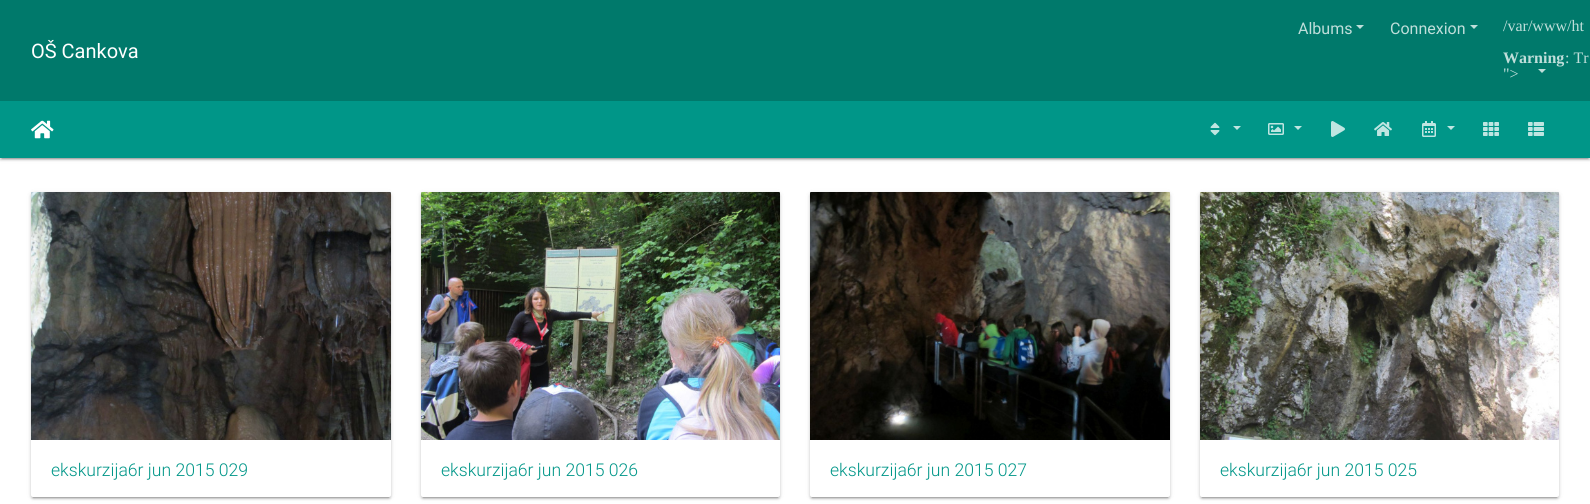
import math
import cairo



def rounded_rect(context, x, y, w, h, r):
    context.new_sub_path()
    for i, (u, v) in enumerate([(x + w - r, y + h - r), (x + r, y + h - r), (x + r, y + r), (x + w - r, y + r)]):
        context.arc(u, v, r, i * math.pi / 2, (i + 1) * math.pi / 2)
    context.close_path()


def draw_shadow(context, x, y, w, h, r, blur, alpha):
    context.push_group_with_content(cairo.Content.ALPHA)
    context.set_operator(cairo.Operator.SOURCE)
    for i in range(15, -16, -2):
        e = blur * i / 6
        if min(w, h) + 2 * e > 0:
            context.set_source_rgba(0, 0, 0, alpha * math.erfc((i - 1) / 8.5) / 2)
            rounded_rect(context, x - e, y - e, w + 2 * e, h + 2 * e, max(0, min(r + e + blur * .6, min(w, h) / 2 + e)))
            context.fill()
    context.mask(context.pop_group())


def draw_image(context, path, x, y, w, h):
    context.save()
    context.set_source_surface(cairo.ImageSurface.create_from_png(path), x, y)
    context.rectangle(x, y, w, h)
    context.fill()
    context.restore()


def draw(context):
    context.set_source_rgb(1, 1, 1)
    context.paint()
    context.set_source_rgb(0, 0, 0)
    draw_shadow(context, 0, 102, 1590, 57, 0, 2.5, 0.12)
    draw_shadow(context, 0, 103, 1590, 57, 0, 1, 0.14)
    context.set_source_rgb(0, 121 / 255, 107 / 255)
    context.rectangle(0, 0, 1590, 101)
    context.fill()
    context.set_source_rgb(191 / 255, 222 / 255, 218 / 255)
    context.new_path()
    context.move_to(1356, 25)
    context.line_to(1364, 25)
    context.line_to(1360, 29)
    context.close_path()
    context.fill()
    context.new_path()
    context.move_to(1470, 25)
    context.line_to(1478, 25)
    context.line_to(1474, 29)
    context.close_path()
    context.fill()
    context.new_path()
    context.move_to(1538, 69)
    context.line_to(1546, 69)
    context.line_to(1542, 73)
    context.close_path()
    context.fill()
    context.set_source_rgb(0, 0, 0)
    draw_shadow(context, 2, 106, 1586, 53, 0, 0.5, 0.2)
    context.set_source_rgb(0, 150 / 255, 136 / 255)
    context.rectangle(0, 101, 1590, 57)
    context.fill()
    draw_image(context, "images/1.png", 31, 120, 23, 19)
    draw_image(context, "images/2.png", 1210, 122, 10, 14)
    context.set_source_rgb(191 / 255, 229 / 255, 225 / 255)
    context.new_path()
    context.move_to(1233, 126)
    context.line_to(1241, 126)
    context.line_to(1237, 130)
    context.close_path()
    context.fill()
    draw_image(context, "images/3.png", 1268, 123, 16, 12)
    context.new_path()
    context.move_to(1294, 126)
    context.line_to(1302, 126)
    context.line_to(1298, 130)
    context.close_path()
    context.fill()
    draw_image(context, "images/4.png", 1331, 121, 14, 16)
    draw_image(context, "images/5.png", 1374, 122, 18, 14)
    draw_image(context, "images/6.png", 1422, 121, 14, 16)
    context.new_path()
    context.move_to(1447, 126)
    context.line_to(1455, 126)
    context.line_to(1451, 130)
    context.close_path()
    context.fill()
    draw_image(context, "images/7.png", 1483, 122, 16, 14)
    draw_image(context, "images/8.png", 1528, 122, 16, 14)
    context.set_source_rgb(0, 0, 0)
    draw_shadow(context, 31, 193, 360, 305, 2, 2.5, 0.12)
    draw_shadow(context, 33, 197, 356, 301, 0, 0.5, 0.2)
    draw_shadow(context, 31, 194, 360, 305, 2, 1, 0.14)
    context.set_source_rgb(1, 1, 1)
    rounded_rect(context, 31, 192, 360, 305, 2)
    context.fill()
    draw_image(context, "images/9.png", 31, 192, 360, 248)
    context.set_source_rgb(0, 0, 0)
    draw_shadow(context, 421, 193, 359, 305, 2, 2.5, 0.12)
    draw_shadow(context, 423, 197, 355, 301, 0, 0.5, 0.2)
    draw_shadow(context, 421, 194, 359, 305, 2, 1, 0.14)
    context.set_source_rgb(1, 1, 1)
    rounded_rect(context, 421, 192, 359, 305, 2)
    context.fill()
    draw_image(context, "images/10.png", 421, 192, 359, 248)
    context.set_source_rgb(0, 0, 0)
    draw_shadow(context, 810, 193, 360, 305, 2, 2.5, 0.12)
    draw_shadow(context, 812, 197, 356, 301, 0, 0.5, 0.2)
    draw_shadow(context, 810, 194, 360, 305, 2, 1, 0.14)
    context.set_source_rgb(1, 1, 1)
    rounded_rect(context, 810, 192, 360, 305, 2)
    context.fill()
    draw_image(context, "images/11.png", 810, 192, 360, 248)
    context.set_source_rgb(0, 0, 0)
    draw_shadow(context, 1200, 193, 359, 305, 2, 2.5, 0.12)
    draw_shadow(context, 1202, 197, 355, 301, 0, 0.5, 0.2)
    draw_shadow(context, 1200, 194, 359, 305, 2, 1, 0.14)
    context.set_source_rgb(1, 1, 1)
    rounded_rect(context, 1200, 192, 359, 305, 2)
    context.fill()
    draw_image(context, "images/12.png", 1200, 192, 359, 248)
    context.select_font_face("Roboto")
    context.set_font_size(20)
    context.move_to(31, 58)
    context.show_text("OŠ Cankova")
    context.set_font_size(16)
    context.set_source_rgb(191 / 255, 222 / 255, 218 / 255)
    context.move_to(1298, 34)
    context.show_text("Albums")
    context.move_to(1390, 34)
    context.show_text("Connexion")
    context.select_font_face("Liberation Serif")
    context.move_to(1503, 31)
    context.show_text("/var/www/ht")
    context.select_font_face("Liberation Serif", cairo.FontSlant.NORMAL, cairo.FontWeight.BOLD)
    context.move_to(1503, 63)
    context.show_text("Warning")
    context.select_font_face("Liberation Serif")
    context.move_to(1565, 63)
    context.show_text(": Tr")
    context.move_to(1503, 79)
    context.show_text("\">")
    context.select_font_face("Roboto Light")
    context.set_font_size(17.6)
    context.set_source_rgb(0, 150 / 255, 136 / 255)
    context.move_to(51, 476)
    context.show_text("ekskurzija6r jun 2015 029")
    context.move_to(441, 476)
    context.show_text("ekskurzija6r jun 2015 026")
    context.move_to(830, 476)
    context.show_text("ekskurzija6r jun 2015 027")
    context.move_to(1220, 476)
    context.show_text("ekskurzija6r jun 2015 025")


surface = cairo.ImageSurface(cairo.Format.RGB24, 1590, 504)
context = cairo.Context(surface)
options = cairo.FontOptions()
options.set_hint_metrics(cairo.HintMetrics.OFF)
options.set_hint_style(cairo.HintStyle.NONE)
context.set_font_options(options)
context.set_miter_limit(4)
draw(context)
surface.write_to_png("out.png")
